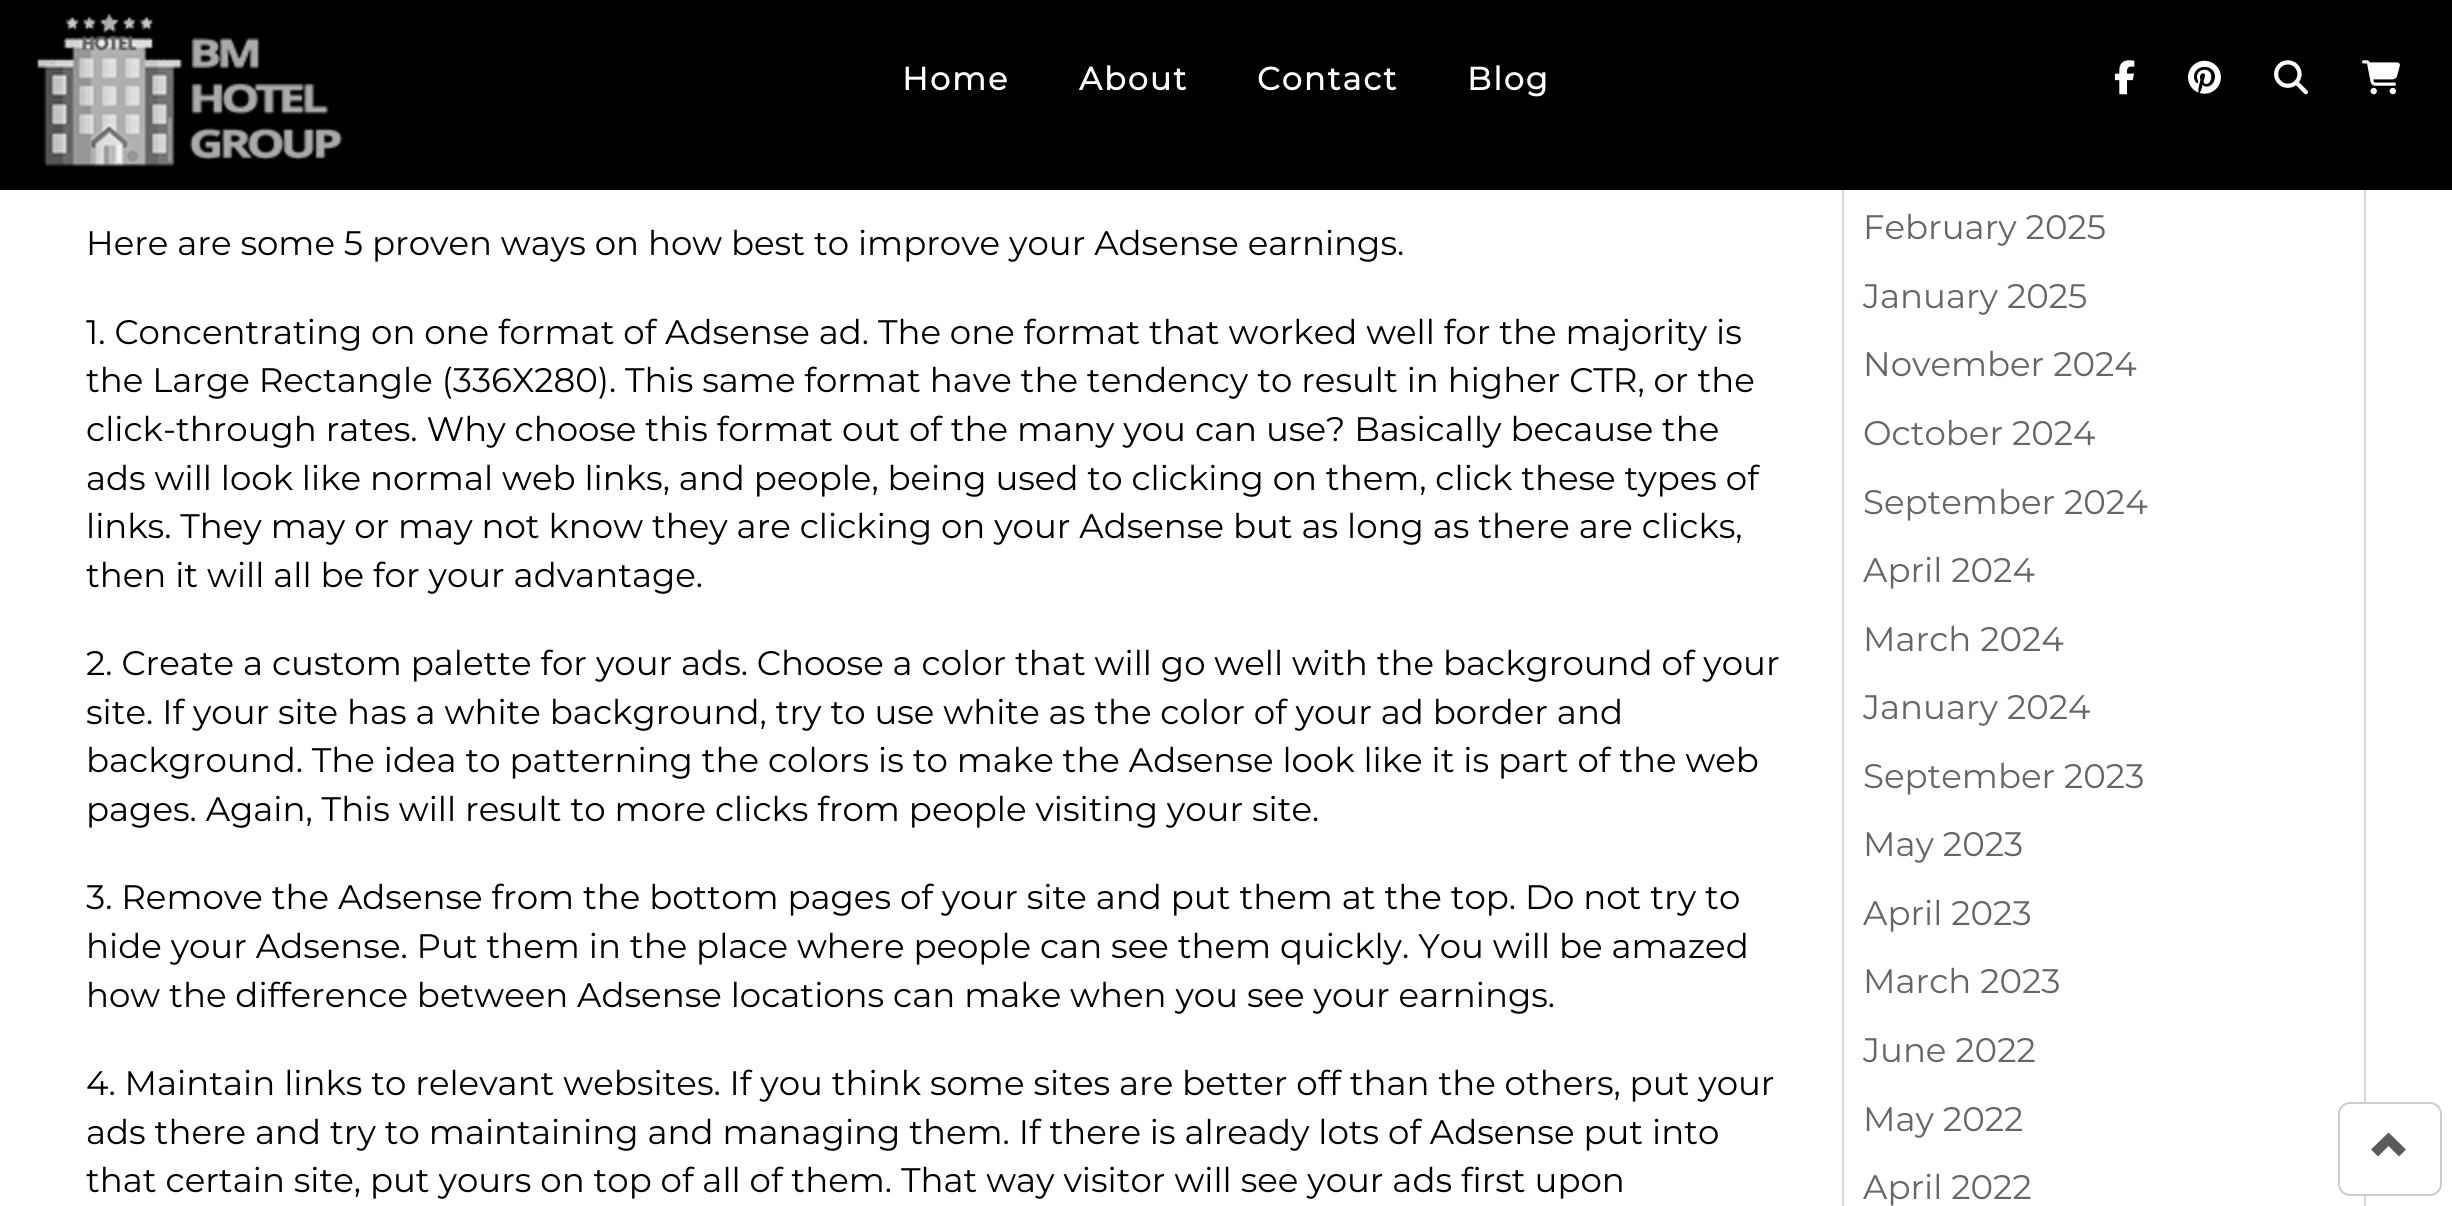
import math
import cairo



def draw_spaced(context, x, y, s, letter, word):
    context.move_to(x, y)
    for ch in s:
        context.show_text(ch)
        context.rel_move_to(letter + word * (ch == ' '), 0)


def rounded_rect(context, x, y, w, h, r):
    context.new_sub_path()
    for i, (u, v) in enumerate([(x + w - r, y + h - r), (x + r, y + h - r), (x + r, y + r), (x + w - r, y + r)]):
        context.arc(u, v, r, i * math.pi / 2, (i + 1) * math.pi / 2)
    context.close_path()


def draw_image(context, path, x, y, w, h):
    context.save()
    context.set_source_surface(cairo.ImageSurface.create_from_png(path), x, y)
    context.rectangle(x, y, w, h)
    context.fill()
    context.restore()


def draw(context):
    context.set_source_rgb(1, 1, 1)
    context.paint()
    context.rectangle(1843, 71, 522, 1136)
    context.set_source_rgb(216 / 255, 216 / 255, 216 / 255)
    context.stroke()
    context.set_source_rgb(0, 0, 0)
    context.rectangle(0, 0, 2452, 190)
    context.fill()
    draw_image(context, "images/1.png", 36, 13, 307, 154)
    draw_image(context, "images/2.png", 2114, 60, 21, 35)
    draw_image(context, "images/3.png", 2188, 60, 33, 34)
    draw_image(context, "images/4.png", 2274, 60, 34, 35)
    draw_image(context, "images/5.png", 2362, 60, 38, 35)
    context.set_source_rgb(1, 1, 1)
    rounded_rect(context, 2339, 1103, 102, 92, 11)
    context.fill_preserve()
    context.set_source_rgb(204 / 255, 204 / 255, 204 / 255)
    context.stroke()
    context.set_source_rgb(91 / 255, 91 / 255, 91 / 255)
    context.new_path()
    context.move_to(2371, 1149.5)
    context.line_to(2378, 1156.5)
    context.line_to(2388.5, 1146)
    context.line_to(2399, 1156.5)
    context.line_to(2406, 1149.5)
    context.line_to(2388.5, 1132.5)
    context.close_path()
    context.fill()
    context.select_font_face("Montserrat", cairo.FontSlant.NORMAL, cairo.FontWeight.BOLD)
    context.set_font_size(32)
    context.set_source_rgb(1, 1, 1)
    draw_spaced(context, 902, 90, "Home", 2, 0)
    draw_spaced(context, 1079, 90, "About", 2, 0)
    draw_spaced(context, 1257, 90, "Contact", 2, 0)
    draw_spaced(context, 1467, 90, "Blog", 2, 0)
    context.select_font_face("Montserrat Thin")
    context.set_font_size(34)
    context.set_source_rgb(0, 0, 0)
    context.move_to(86, 255)
    context.show_text("Here are some 5 proven ways on how best to improve your Adsense earnings.")
    context.move_to(86, 344)
    context.show_text("1. Concentrating on one format of Adsense ad. The one format that worked well for the majority is")
    context.move_to(86, 392)
    context.show_text("the Large Rectangle (336X280). This same format have the tendency to result in higher CTR, or the")
    context.move_to(86, 441)
    context.show_text("click-through rates. Why choose this format out of the many you can use? Basically because the")
    context.move_to(86, 490)
    context.show_text("ads will look like normal web links, and people, being used to clicking on them, click these types of")
    context.move_to(86, 538)
    context.show_text("links. They may or may not know they are clicking on your Adsense but as long as there are clicks,")
    context.move_to(86, 587)
    context.show_text("then it will all be for your advantage.")
    context.move_to(86, 675)
    context.show_text("2. Create a custom palette for your ads. Choose a color that will go well with the background of your")
    context.move_to(86, 724)
    context.show_text("site. If your site has a white background, try to use white as the color of your ad border and")
    context.move_to(86, 772)
    context.show_text("background. The idea to patterning the colors is to make the Adsense look like it is part of the web")
    context.move_to(86, 821)
    context.show_text("pages. Again, This will result to more clicks from people visiting your site.")
    context.move_to(86, 909)
    context.show_text("3. Remove the Adsense from the bottom pages of your site and put them at the top. Do not try to")
    context.move_to(86, 958)
    context.show_text("hide your Adsense. Put them in the place where people can see them quickly. You will be amazed")
    context.move_to(86, 1007)
    context.show_text("how the difference between Adsense locations can make when you see your earnings.")
    context.move_to(86, 1095)
    context.show_text("4. Maintain links to relevant websites. If you think some sites are better off than the others, put your")
    context.move_to(86, 1144)
    context.show_text("ads there and try to maintaining and managing them. If there is already lots of Adsense put into")
    context.move_to(86, 1192)
    context.show_text("that certain site, put yours on top of all of them. That way visitor will see your ads first upon")
    context.set_source_rgb(102 / 255, 102 / 255, 102 / 255)
    context.move_to(1863, 239)
    context.show_text("February 2025")
    context.move_to(1863, 308)
    context.show_text("January 2025")
    context.move_to(1863, 376)
    context.show_text("November 2024")
    context.move_to(1863, 445)
    context.show_text("October 2024")
    context.move_to(1863, 514)
    context.show_text("September 2024")
    context.move_to(1863, 582)
    context.show_text("April 2024")
    context.move_to(1863, 651)
    context.show_text("March 2024")
    context.move_to(1863, 719)
    context.show_text("January 2024")
    context.move_to(1863, 788)
    context.show_text("September 2023")
    context.move_to(1863, 856)
    context.show_text("May 2023")
    context.move_to(1863, 925)
    context.show_text("April 2023")
    context.move_to(1863, 993)
    context.show_text("March 2023")
    context.move_to(1863, 1062)
    context.show_text("June 2022")
    context.move_to(1863, 1131)
    context.show_text("May 2022")
    context.move_to(1863, 1199)
    context.show_text("April 2022")


surface = cairo.ImageSurface(cairo.Format.RGB24, 2452, 1206)
context = cairo.Context(surface)
options = cairo.FontOptions()
options.set_hint_metrics(cairo.HintMetrics.OFF)
options.set_hint_style(cairo.HintStyle.NONE)
context.set_font_options(options)
context.set_miter_limit(4)
draw(context)
surface.write_to_png("out.png")
